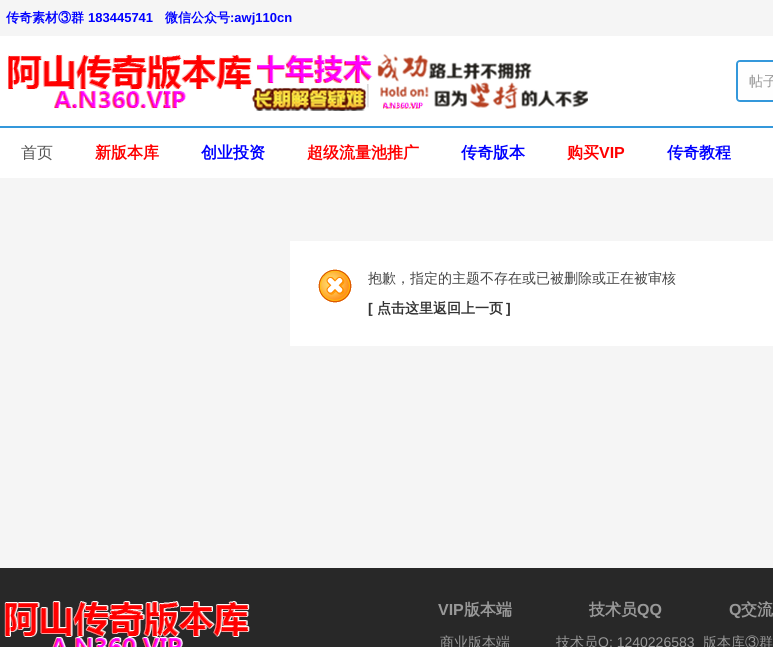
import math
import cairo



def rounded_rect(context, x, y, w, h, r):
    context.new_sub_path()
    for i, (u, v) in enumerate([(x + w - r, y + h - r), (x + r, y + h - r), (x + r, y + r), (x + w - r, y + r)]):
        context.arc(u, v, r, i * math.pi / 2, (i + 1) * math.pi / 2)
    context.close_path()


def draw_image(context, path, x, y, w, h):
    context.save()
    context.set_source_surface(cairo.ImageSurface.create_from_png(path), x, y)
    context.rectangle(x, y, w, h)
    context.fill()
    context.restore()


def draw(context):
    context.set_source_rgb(245 / 255, 245 / 255, 245 / 255)
    context.paint()
    context.set_source_rgb(1, 1, 1)
    context.rectangle(0, 36, 773, 90)
    context.fill()
    context.set_source_rgb(52 / 255, 152 / 255, 219 / 255)
    context.rectangle(0, 126, 773, 2)
    context.fill()
    draw_image(context, "images/1.png", 8, 54, 580, 57)
    rounded_rect(context, 737, 61, 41, 40, 3)
    context.stroke()
    context.set_source_rgb(254 / 255, 254 / 255, 254 / 255)
    context.new_path()
    context.move_to(740, 62)
    context.line_to(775, 62)
    context.line_to(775, 100)
    context.line_to(740, 100)
    context.curve_to(739, 100, 738, 99, 738, 98)
    context.line_to(738, 64)
    context.curve_to(738, 63, 739, 62, 740, 62)
    context.close_path()
    context.fill()
    context.set_source_rgb(1, 1, 1)
    context.rectangle(0, 128, 773, 50)
    context.fill()
    context.rectangle(290, 241, 483, 105)
    context.fill()
    draw_image(context, "images/2.png", 318, 269, 34, 34)
    context.set_source_rgb(40 / 255, 40 / 255, 40 / 255)
    context.rectangle(0, 568, 773, 79)
    context.fill()
    draw_image(context, "images/3.png", 4, 601, 246, 46)
    context.select_font_face("WenQuanYi Zen Hei", cairo.FontSlant.NORMAL, cairo.FontWeight.BOLD)
    context.set_font_size(13)
    context.set_source_rgb(0, 0, 1)
    context.move_to(6, 22)
    context.show_text("传奇素材③群")
    context.select_font_face("Liberation Sans", cairo.FontSlant.NORMAL, cairo.FontWeight.BOLD)
    context.move_to(88, 22)
    context.show_text("183445741")
    context.select_font_face("WenQuanYi Zen Hei", cairo.FontSlant.NORMAL, cairo.FontWeight.BOLD)
    context.move_to(165, 22)
    context.show_text("微信公众号")
    context.select_font_face("Liberation Sans", cairo.FontSlant.NORMAL, cairo.FontWeight.BOLD)
    context.move_to(230, 22)
    context.show_text(":awj110cn")
    context.select_font_face("WenQuanYi Zen Hei Medium")
    context.set_font_size(14)
    context.set_source_rgb(153 / 255, 153 / 255, 153 / 255)
    context.move_to(749, 86)
    context.show_text("帖子")
    context.set_font_size(16)
    context.set_source_rgb(85 / 255, 85 / 255, 85 / 255)
    context.move_to(21, 158)
    context.show_text("首页")
    context.select_font_face("WenQuanYi Zen Hei", cairo.FontSlant.NORMAL, cairo.FontWeight.BOLD)
    context.set_source_rgb(1, 0, 0)
    context.move_to(95, 158)
    context.show_text("新版本库")
    context.set_source_rgb(0, 0, 1)
    context.move_to(201, 158)
    context.show_text("创业投资")
    context.set_source_rgb(1, 0, 0)
    context.move_to(307, 158)
    context.show_text("超级流量池推广")
    context.set_source_rgb(0, 0, 1)
    context.move_to(461, 158)
    context.show_text("传奇版本")
    context.set_source_rgb(1, 0, 0)
    context.move_to(567, 158)
    context.show_text("购买")
    context.select_font_face("Liberation Sans", cairo.FontSlant.NORMAL, cairo.FontWeight.BOLD)
    context.move_to(599, 158)
    context.show_text("VIP")
    context.select_font_face("WenQuanYi Zen Hei", cairo.FontSlant.NORMAL, cairo.FontWeight.BOLD)
    context.set_source_rgb(0, 0, 1)
    context.move_to(667, 158)
    context.show_text("传奇教程")
    context.select_font_face("WenQuanYi Zen Hei Medium")
    context.set_font_size(14)
    context.set_source_rgb(68 / 255, 68 / 255, 68 / 255)
    context.move_to(368, 283)
    context.show_text("抱歉，指定的主题不存在或已被删除或正在被审核")
    context.select_font_face("Liberation Sans", cairo.FontSlant.NORMAL, cairo.FontWeight.BOLD)
    context.set_source_rgb(51 / 255, 51 / 255, 51 / 255)
    context.move_to(368, 313)
    context.show_text("[")
    context.select_font_face("WenQuanYi Zen Hei", cairo.FontSlant.NORMAL, cairo.FontWeight.BOLD)
    context.move_to(377, 313)
    context.show_text("点击这里返回上一页")
    context.select_font_face("Liberation Sans", cairo.FontSlant.NORMAL, cairo.FontWeight.BOLD)
    context.move_to(506, 313)
    context.show_text("]")
    context.set_font_size(16)
    context.set_source_rgb(153 / 255, 153 / 255, 153 / 255)
    context.move_to(438, 615)
    context.show_text("VIP")
    context.select_font_face("WenQuanYi Zen Hei", cairo.FontSlant.NORMAL, cairo.FontWeight.BOLD)
    context.move_to(464, 615)
    context.show_text("版本端")
    context.select_font_face("WenQuanYi Zen Hei Medium")
    context.set_font_size(14)
    context.move_to(440, 647)
    context.show_text("商业版本端")
    context.select_font_face("WenQuanYi Zen Hei", cairo.FontSlant.NORMAL, cairo.FontWeight.BOLD)
    context.set_font_size(16)
    context.move_to(589, 615)
    context.show_text("技术员")
    context.select_font_face("Liberation Sans", cairo.FontSlant.NORMAL, cairo.FontWeight.BOLD)
    context.move_to(637, 615)
    context.show_text("QQ")
    context.select_font_face("WenQuanYi Zen Hei Medium")
    context.set_font_size(14)
    context.move_to(556, 647)
    context.show_text("技术员")
    context.select_font_face("Liberation Sans")
    context.move_to(598, 647)
    context.show_text("Q: 1240226583")
    context.select_font_face("Liberation Sans", cairo.FontSlant.NORMAL, cairo.FontWeight.BOLD)
    context.set_font_size(16)
    context.move_to(729, 615)
    context.show_text("Q")
    context.select_font_face("WenQuanYi Zen Hei", cairo.FontSlant.NORMAL, cairo.FontWeight.BOLD)
    context.move_to(741, 615)
    context.show_text("交流")
    context.select_font_face("WenQuanYi Zen Hei Medium")
    context.set_font_size(14)
    context.move_to(703, 647)
    context.show_text("版本库③群")


surface = cairo.ImageSurface(cairo.Format.RGB24, 773, 647)
context = cairo.Context(surface)
options = cairo.FontOptions()
options.set_hint_metrics(cairo.HintMetrics.OFF)
options.set_hint_style(cairo.HintStyle.NONE)
context.set_font_options(options)
context.set_miter_limit(4)
draw(context)
surface.write_to_png("out.png")
